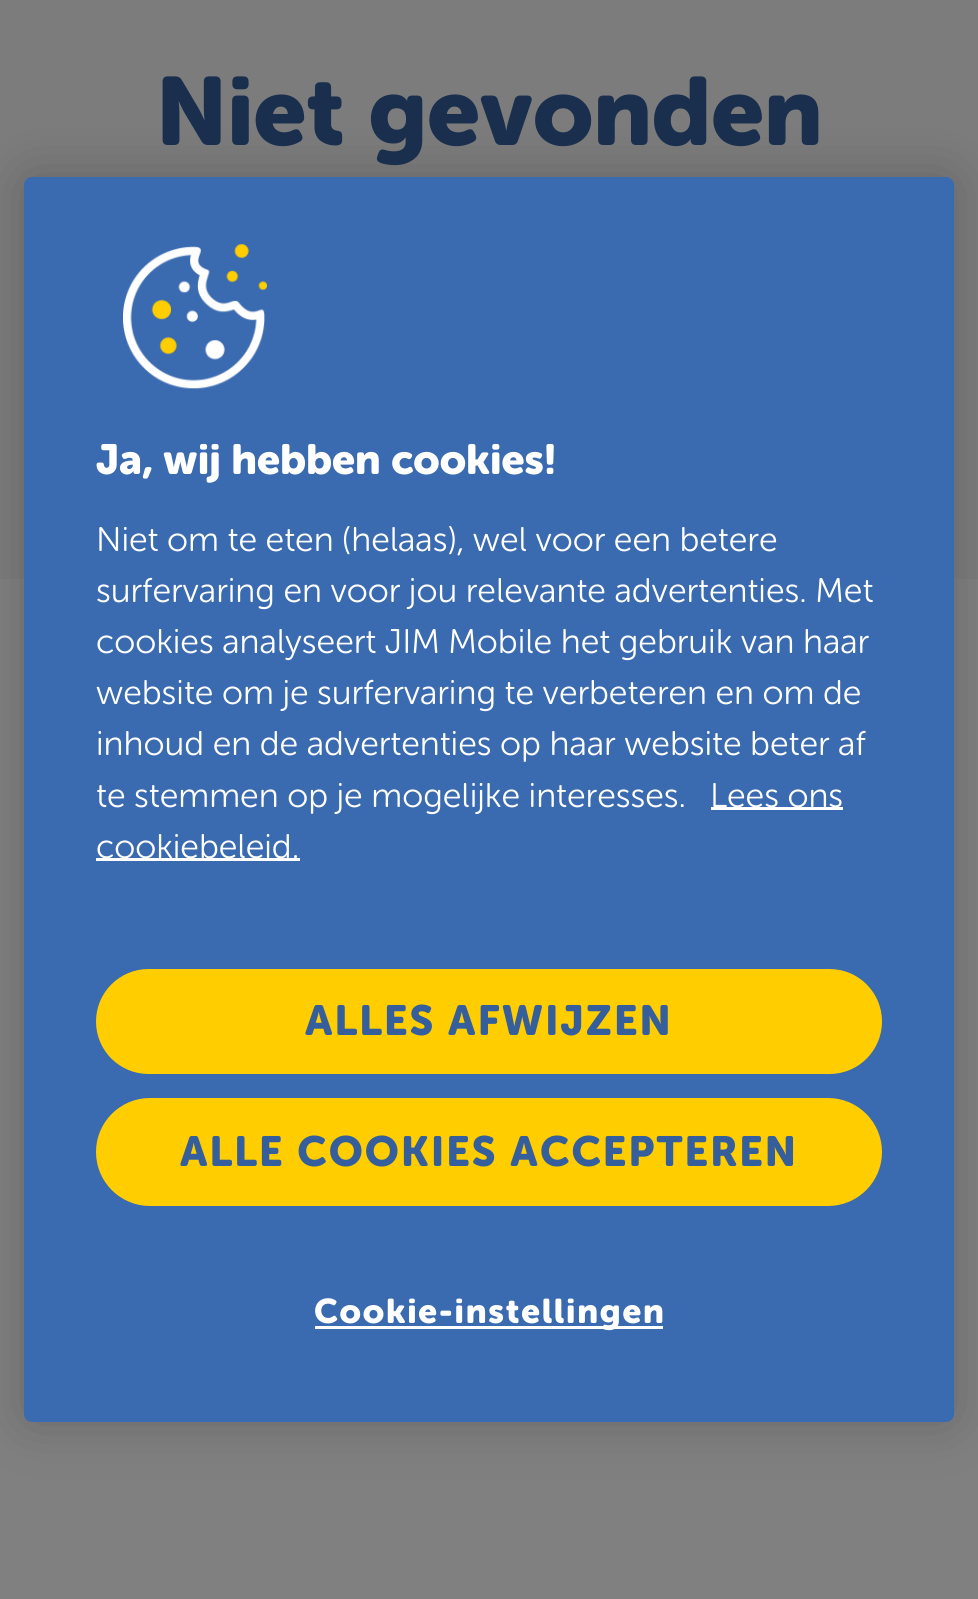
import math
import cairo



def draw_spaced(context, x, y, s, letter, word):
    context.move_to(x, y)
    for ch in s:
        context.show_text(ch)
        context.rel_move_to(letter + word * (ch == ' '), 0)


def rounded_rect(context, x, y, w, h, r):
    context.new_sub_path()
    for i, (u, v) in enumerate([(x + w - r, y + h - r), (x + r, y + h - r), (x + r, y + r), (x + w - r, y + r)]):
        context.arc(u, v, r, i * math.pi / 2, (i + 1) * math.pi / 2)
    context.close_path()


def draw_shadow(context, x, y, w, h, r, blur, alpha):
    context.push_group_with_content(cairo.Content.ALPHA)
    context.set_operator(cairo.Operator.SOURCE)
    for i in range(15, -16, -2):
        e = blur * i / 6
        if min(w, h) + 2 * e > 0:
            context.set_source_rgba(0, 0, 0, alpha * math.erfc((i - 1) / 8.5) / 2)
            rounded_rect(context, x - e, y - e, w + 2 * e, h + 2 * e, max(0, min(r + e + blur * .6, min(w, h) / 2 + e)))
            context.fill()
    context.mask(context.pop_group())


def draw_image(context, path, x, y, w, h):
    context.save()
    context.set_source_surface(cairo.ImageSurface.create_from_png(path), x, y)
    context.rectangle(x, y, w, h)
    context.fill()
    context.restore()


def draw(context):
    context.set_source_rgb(128 / 255, 128 / 255, 128 / 255)
    context.paint()
    context.set_source_rgb(124 / 255, 124 / 255, 124 / 255)
    context.rectangle(0, 0, 978, 579)
    context.fill()
    context.set_source_rgb(0, 0, 0)
    draw_shadow(context, 24, 177, 930, 1245, 8, 27, 0.2)
    context.set_source_rgb(58 / 255, 106 / 255, 175 / 255)
    rounded_rect(context, 24, 177, 930, 1245, 8)
    context.fill()
    draw_image(context, "images/1.png", 123, 244, 144, 145)
    context.set_source_rgb(1, 1, 1)
    context.rectangle(711, 807, 132, 3)
    context.fill()
    context.rectangle(96, 858, 204, 3)
    context.fill()
    context.set_source_rgb(1, 205 / 255, 0)
    rounded_rect(context, 96, 969, 786, 105, 52.5)
    context.fill()
    rounded_rect(context, 96, 1098, 786, 108, 54)
    context.fill()
    context.set_source_rgb(1, 1, 1)
    context.rectangle(315, 1326, 348, 3)
    context.fill()
    context.select_font_face("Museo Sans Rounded", cairo.FontSlant.NORMAL, cairo.FontWeight.BOLD)
    context.set_font_size(96)
    context.set_source_rgb(26 / 255, 47 / 255, 78 / 255)
    context.move_to(156, 145)
    context.show_text("Niet gevonden")
    context.set_font_size(42)
    context.set_source_rgb(1, 1, 1)
    context.move_to(96, 474)
    context.show_text("Ja, wij hebben cookies!")
    context.select_font_face("Museo Sans Rounded Light")
    context.set_font_size(34.15)
    context.move_to(96, 551)
    context.show_text("Niet om te eten (helaas), wel voor een betere")
    context.move_to(96, 602)
    context.show_text("surfervaring en voor jou relevante advertenties. Met")
    context.move_to(96, 653)
    context.show_text("cookies analyseert JIM Mobile het gebruik van haar")
    context.move_to(96, 704)
    context.show_text("website om je surfervaring te verbeteren en om de")
    context.move_to(96, 755)
    context.show_text("inhoud en de advertenties op haar website beter af")
    context.move_to(96, 807)
    context.show_text("te stemmen op je mogelijke interesses.")
    context.move_to(710, 807)
    context.show_text("Lees ons")
    context.move_to(96, 858)
    context.show_text("cookiebeleid.")
    context.select_font_face("Museo Sans Rounded", cairo.FontSlant.NORMAL, cairo.FontWeight.BOLD)
    context.set_font_size(42)
    context.set_source_rgb(52 / 255, 94 / 255, 156 / 255)
    draw_spaced(context, 305, 1035, "ALLES AFWIJZEN", 2.1, 0)
    draw_spaced(context, 180, 1166, "ALLE COOKIES ACCEPTEREN", 2.1, 0)
    context.set_font_size(34.15)
    context.set_source_rgb(1, 1, 1)
    draw_spaced(context, 314, 1323, "Cookie-instellingen", 1.75, 0)


surface = cairo.ImageSurface(cairo.Format.RGB24, 978, 1599)
context = cairo.Context(surface)
options = cairo.FontOptions()
options.set_hint_metrics(cairo.HintMetrics.OFF)
options.set_hint_style(cairo.HintStyle.NONE)
context.set_font_options(options)
context.set_miter_limit(4)
draw(context)
surface.write_to_png("out.png")
